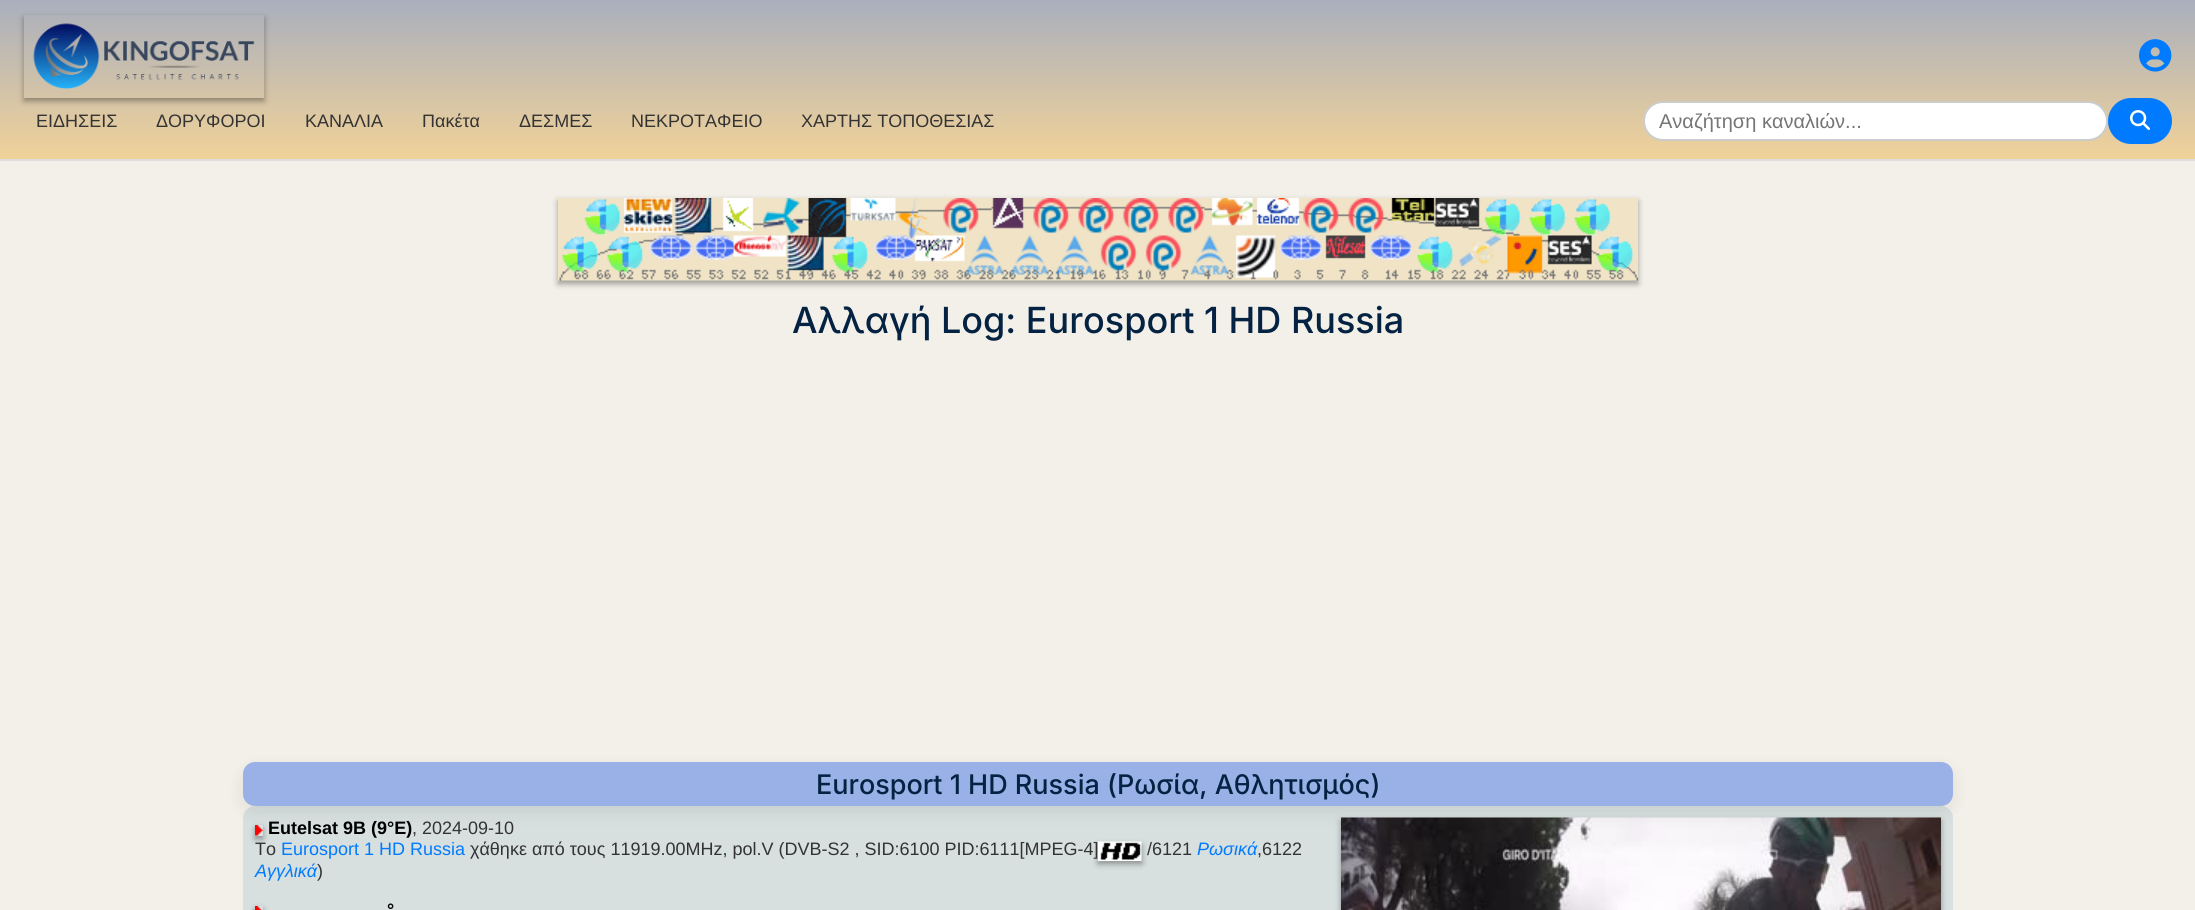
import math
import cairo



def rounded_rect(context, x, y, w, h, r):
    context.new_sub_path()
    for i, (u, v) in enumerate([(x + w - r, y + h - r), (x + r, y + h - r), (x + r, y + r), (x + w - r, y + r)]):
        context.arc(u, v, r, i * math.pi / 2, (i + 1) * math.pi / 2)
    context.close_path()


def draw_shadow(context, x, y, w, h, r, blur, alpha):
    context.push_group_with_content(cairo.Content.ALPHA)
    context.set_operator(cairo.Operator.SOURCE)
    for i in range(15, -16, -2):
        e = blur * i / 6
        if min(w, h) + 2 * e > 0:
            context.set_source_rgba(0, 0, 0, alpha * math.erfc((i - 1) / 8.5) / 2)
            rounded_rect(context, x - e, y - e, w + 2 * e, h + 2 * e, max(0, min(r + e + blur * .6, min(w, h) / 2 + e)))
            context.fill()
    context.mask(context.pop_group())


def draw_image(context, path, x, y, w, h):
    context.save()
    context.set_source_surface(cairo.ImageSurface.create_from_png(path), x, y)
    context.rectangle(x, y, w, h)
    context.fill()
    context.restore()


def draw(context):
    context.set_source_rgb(1, 1, 1)
    context.paint()
    gradient = cairo.LinearGradient(1098, 0, 1098, 159)
    gradient.add_color_stop_rgba(0, 169 / 255, 175 / 255, 189 / 255, 1)
    gradient.add_color_stop_rgba(1, 241 / 255, 210 / 255, 153 / 255, 1)
    context.set_source(gradient)
    context.rectangle(0, 0, 2195, 159)
    context.fill()
    context.set_source_rgb(221 / 255, 221 / 255, 221 / 255)
    context.rectangle(0, 159, 2195, 2)
    context.fill()
    context.save()
    context.set_fill_rule(cairo.FillRule.EVEN_ODD)
    context.new_path()
    context.move_to(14, 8)
    context.line_to(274, 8)
    context.line_to(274, 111)
    context.line_to(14, 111)
    context.close_path()
    context.move_to(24, 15)
    context.line_to(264, 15)
    context.line_to(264, 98)
    context.line_to(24, 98)
    context.close_path()
    context.clip()
    context.set_source_rgb(0, 0, 0)
    draw_shadow(context, 24, 18, 240, 83, 0, 3, 0.35)
    context.restore()
    draw_image(context, "images/1.png", 33, 23, 222, 66)
    draw_image(context, "images/2.png", 2139, 39, 33, 33)
    context.set_source_rgb(1, 1, 1)
    rounded_rect(context, 1644, 102, 463, 38, 19)
    context.fill_preserve()
    context.set_source_rgb(204 / 255, 204 / 255, 204 / 255)
    context.stroke()
    context.set_source_rgb(0, 123 / 255, 1)
    rounded_rect(context, 2108, 98, 64, 46, 23)
    context.fill()
    draw_image(context, "images/3.png", 2130, 110, 20, 20)
    context.set_source_rgb(243 / 255, 240 / 255, 233 / 255)
    context.rectangle(0, 161, 2195, 749)
    context.fill()
    context.set_source_rgb(0, 0, 0)
    draw_shadow(context, 558, 201, 1080, 83, 0, 3, 0.35)
    draw_image(context, "images/4.png", 558, 198, 1080, 83)
    context.set_source_rgb(215 / 255, 223 / 255, 223 / 255)
    rounded_rect(context, 243, 806, 1710, 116, 12)
    context.fill()
    context.save()
    context.set_fill_rule(cairo.FillRule.EVEN_ODD)
    context.new_path()
    context.move_to(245, 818)
    context.line_to(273, 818)
    context.line_to(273, 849)
    context.line_to(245, 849)
    context.close_path()
    context.move_to(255, 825)
    context.line_to(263, 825)
    context.line_to(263, 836)
    context.line_to(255, 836)
    context.close_path()
    context.clip()
    context.set_source_rgb(0, 0, 0)
    draw_shadow(context, 255, 828, 8, 11, 0, 3, 0.35)
    context.restore()
    draw_image(context, "images/5.png", 255, 825, 8, 11)
    context.set_source_rgb(0, 0, 0)
    draw_shadow(context, 1341, 821, 600, 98, 0, 3, 0.35)
    draw_image(context, "images/7.png", 1341, 817, 600, 93)
    draw_shadow(context, 243, 768, 1710, 44, 12, 9, 0.08)
    context.set_source_rgb(153 / 255, 177 / 255, 231 / 255)
    rounded_rect(context, 243, 762, 1710, 44, 12)
    context.fill()
    context.set_source_rgb(0, 0, 0)
    draw_shadow(context, 1098, 845, 44, 19, 0, 3, 0.35)
    draw_image(context, "images/6.png", 1098, 841, 44, 20)
    context.save()
    context.set_fill_rule(cairo.FillRule.EVEN_ODD)
    context.new_path()
    context.move_to(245, 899)
    context.line_to(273, 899)
    context.line_to(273, 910)
    context.line_to(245, 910)
    context.close_path()
    context.move_to(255, 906)
    context.line_to(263, 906)
    context.line_to(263, 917)
    context.line_to(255, 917)
    context.close_path()
    context.clip()
    draw_shadow(context, 255, 909, 8, 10, 0, 3, 0.35)
    context.restore()
    draw_image(context, "images/8.png", 255, 906, 7, 4)
    context.select_font_face("Liberation Sans")
    context.set_font_size(18)
    context.set_source_rgb(51 / 255, 51 / 255, 51 / 255)
    context.move_to(36, 127)
    context.show_text("ΕΙΔΗΣΕΙΣ")
    context.move_to(156, 127)
    context.show_text("ΔΟΡΥΦΟΡΟΙ")
    context.move_to(305, 127)
    context.show_text("ΚΑΝΑΛΙΑ")
    context.move_to(422, 127)
    context.show_text("Πακέτα")
    context.move_to(519, 127)
    context.show_text("ΔΕΣΜΕΣ")
    context.move_to(631, 127)
    context.show_text("ΝΕΚΡΟΤΑΦΕΙΟ")
    context.move_to(801, 127)
    context.show_text("ΧΑΡΤΗΣ ΤΟΠΟΘΕΣΙΑΣ")
    context.save()
    context.rectangle(1659, 110, 432, 22)
    context.clip()
    context.set_font_size(20)
    context.set_source_rgb(117 / 255, 117 / 255, 117 / 255)
    context.move_to(1659, 128)
    context.show_text("Αναζήτηση καναλιών...")
    context.restore()
    context.select_font_face("Inter Medium")
    context.set_font_size(36)
    context.set_source_rgb(4 / 255, 34 / 255, 66 / 255)
    context.move_to(792, 333)
    context.show_text("Αλλαγή Log: Eurosport 1 HD Russia")
    context.set_font_size(27)
    context.move_to(816, 794)
    context.show_text("Eurosport 1 HD Russia (Ρωσία, Αθλητισμός)")
    context.select_font_face("Liberation Sans", cairo.FontSlant.NORMAL, cairo.FontWeight.BOLD)
    context.set_font_size(18)
    context.set_source_rgb(0, 0, 0)
    context.move_to(268, 834)
    context.show_text("Eutelsat 9B (9°E)")
    context.select_font_face("Liberation Sans")
    context.set_source_rgb(51 / 255, 51 / 255, 51 / 255)
    context.move_to(412, 834)
    context.show_text(", 2024-09-10")
    context.set_source_rgb(0, 123 / 255, 1)
    context.move_to(281, 855)
    context.show_text("Eurosport 1 HD Russia")
    context.set_source_rgb(51 / 255, 51 / 255, 51 / 255)
    context.move_to(470, 855)
    context.show_text("χάθηκε από τους 11919.00MHz, pol.V (DVB-S2 , SID:6100 PID:6111[MPEG-4]")
    context.move_to(255, 855)
    context.show_text("Το")
    context.move_to(1147, 855)
    context.show_text("/6121")
    context.select_font_face("Liberation Sans", cairo.FontSlant.ITALIC)
    context.set_source_rgb(0, 123 / 255, 1)
    context.move_to(1197, 855)
    context.show_text("Ρωσικά")
    context.select_font_face("Liberation Sans")
    context.set_source_rgb(51 / 255, 51 / 255, 51 / 255)
    context.move_to(1257, 855)
    context.show_text(",6122")
    context.select_font_face("Liberation Sans", cairo.FontSlant.ITALIC)
    context.set_source_rgb(0, 123 / 255, 1)
    context.move_to(255, 877)
    context.show_text("Αγγλικά")
    context.select_font_face("Liberation Sans")
    context.set_source_rgb(51 / 255, 51 / 255, 51 / 255)
    context.move_to(317, 877)
    context.show_text(")")
    context.select_font_face("Liberation Sans", cairo.FontSlant.NORMAL, cairo.FontWeight.BOLD)
    context.set_source_rgb(0, 0, 0)
    context.move_to(387, 916)
    context.show_text("°")


surface = cairo.ImageSurface(cairo.Format.RGB24, 2195, 910)
context = cairo.Context(surface)
options = cairo.FontOptions()
options.set_hint_metrics(cairo.HintMetrics.OFF)
options.set_hint_style(cairo.HintStyle.NONE)
context.set_font_options(options)
context.set_miter_limit(4)
draw(context)
surface.write_to_png("out.png")
